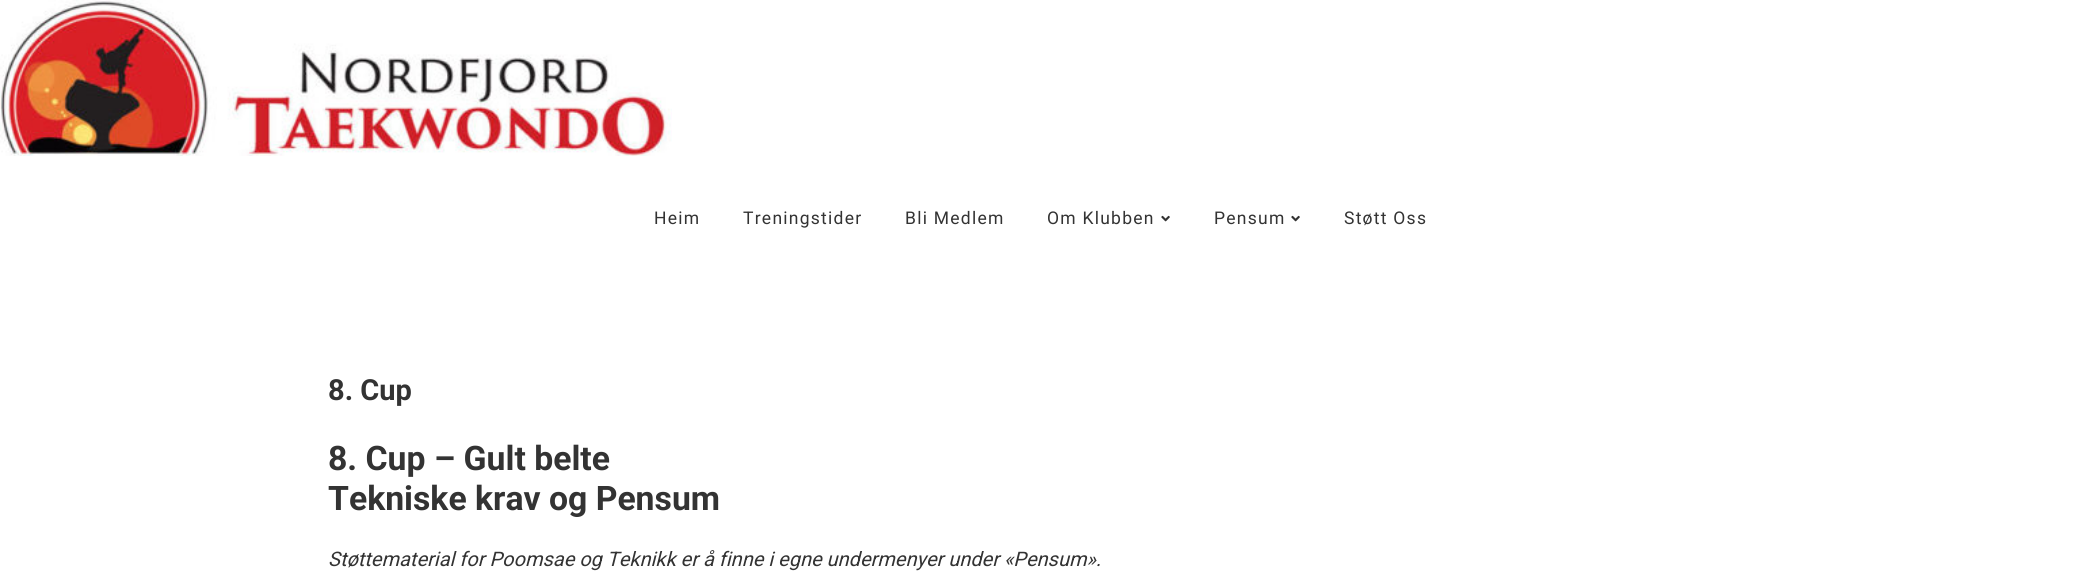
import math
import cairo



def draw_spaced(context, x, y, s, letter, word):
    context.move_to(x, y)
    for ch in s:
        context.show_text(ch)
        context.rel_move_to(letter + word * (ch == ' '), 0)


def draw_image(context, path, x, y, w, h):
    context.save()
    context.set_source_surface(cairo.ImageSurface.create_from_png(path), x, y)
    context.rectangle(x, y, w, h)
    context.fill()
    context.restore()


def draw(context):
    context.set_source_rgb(1, 1, 1)
    context.paint()
    draw_image(context, "images/1.png", 0, 0, 672, 156)
    draw_image(context, "images/2.png", 1161, 215, 9, 7)
    draw_image(context, "images/2.png", 1291, 215, 9, 7)
    context.select_font_face("Roboto")
    context.set_font_size(17.5)
    context.set_source_rgb(51 / 255, 51 / 255, 51 / 255)
    draw_spaced(context, 654, 224, "Heim", 1.25, 0)
    draw_spaced(context, 743, 224, "Treningstider", 1.25, 0)
    draw_spaced(context, 905, 224, "Bli Medlem", 1.25, 0)
    draw_spaced(context, 1047, 224, "Om Klubben", 1.25, 0)
    draw_spaced(context, 1214, 224, "Pensum", 1.25, 0)
    draw_spaced(context, 1344, 224, "Støtt Oss", 1.25, 0)
    context.select_font_face("Roboto", cairo.FontSlant.NORMAL, cairo.FontWeight.BOLD)
    context.set_font_size(29)
    context.move_to(328, 400)
    context.show_text("8. Cup")
    context.set_font_size(33.75)
    context.move_to(328, 470)
    context.show_text("8. Cup – Gult belte")
    context.move_to(328, 510)
    context.show_text("Tekniske krav og Pensum")
    context.select_font_face("Roboto", cairo.FontSlant.ITALIC)
    context.set_font_size(20)
    context.move_to(328, 566)
    context.show_text("Støttematerial for Poomsae og Teknikk er å finne i egne undermenyer under «Pensum».")


surface = cairo.ImageSurface(cairo.Format.RGB24, 2081, 584)
context = cairo.Context(surface)
options = cairo.FontOptions()
options.set_hint_metrics(cairo.HintMetrics.OFF)
options.set_hint_style(cairo.HintStyle.NONE)
context.set_font_options(options)
context.set_miter_limit(4)
draw(context)
surface.write_to_png("out.png")
